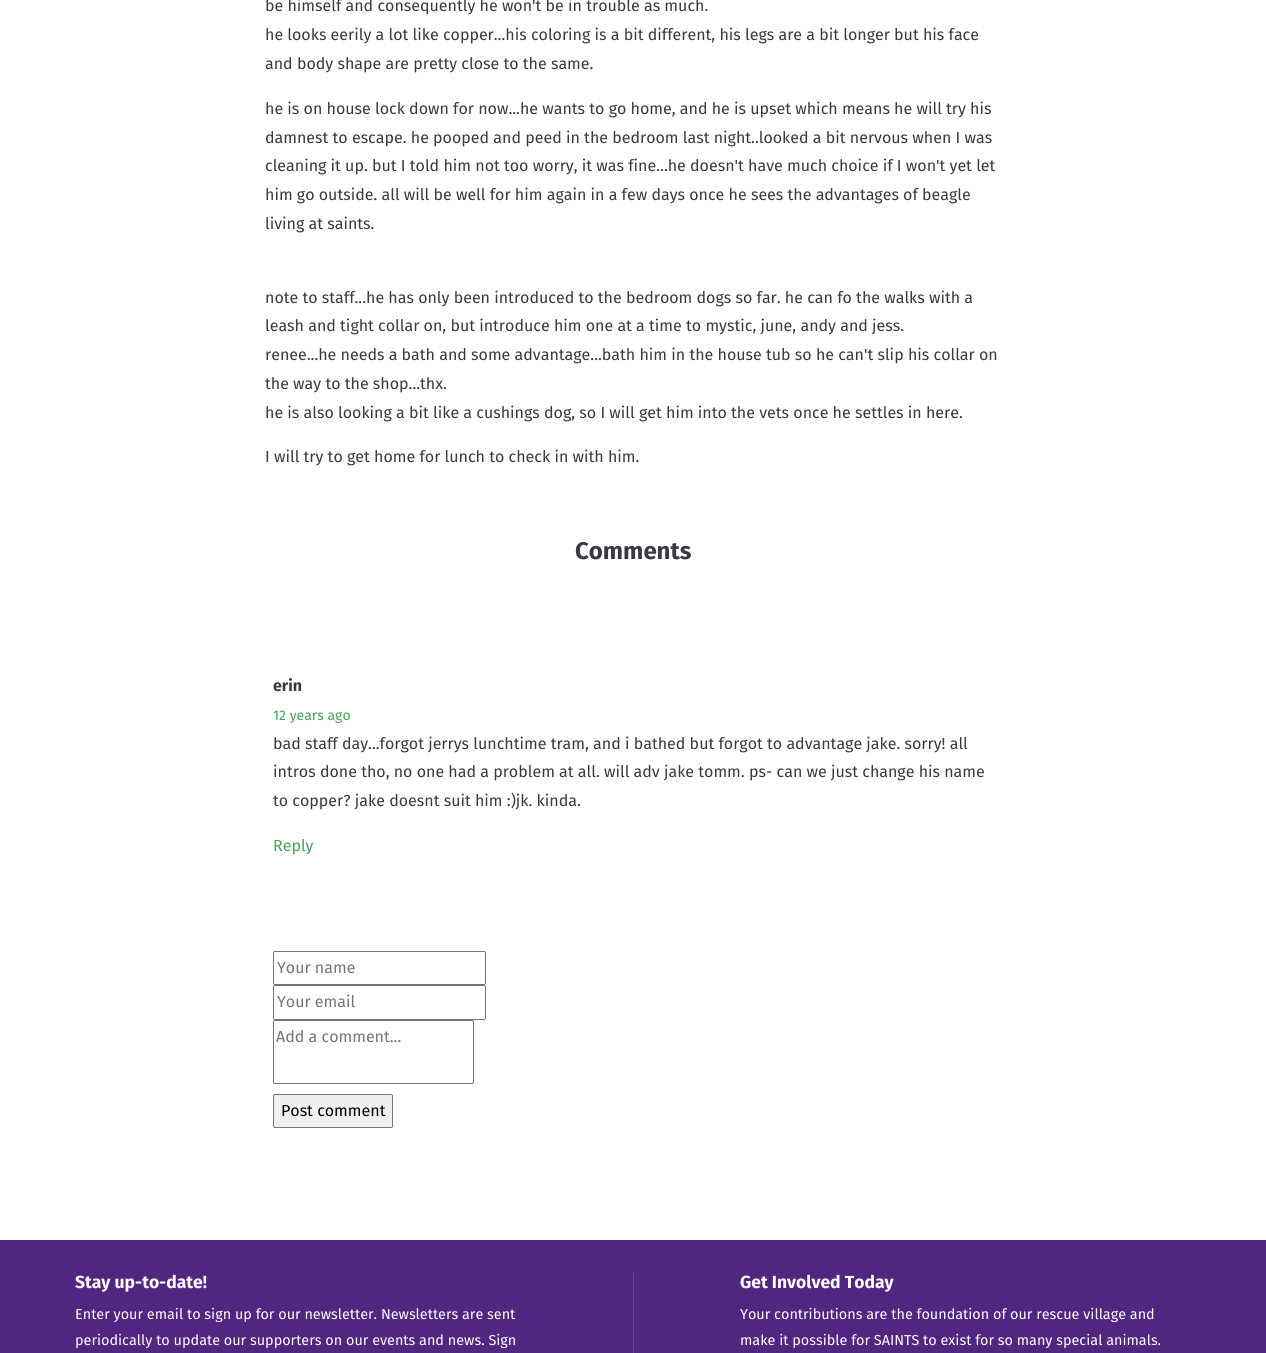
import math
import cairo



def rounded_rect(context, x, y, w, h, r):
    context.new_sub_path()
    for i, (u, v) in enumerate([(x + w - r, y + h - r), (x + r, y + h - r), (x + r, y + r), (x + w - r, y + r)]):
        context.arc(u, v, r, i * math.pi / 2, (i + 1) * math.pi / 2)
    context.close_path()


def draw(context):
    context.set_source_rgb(1, 1, 1)
    context.paint()
    rounded_rect(context, 273.5, 951.5, 212, 33, 1.5)
    context.set_source_rgb(118 / 255, 118 / 255, 118 / 255)
    context.set_line_width(1)
    context.stroke()
    rounded_rect(context, 273.5, 985.5, 212, 34, 1.5)
    context.stroke()
    rounded_rect(context, 273.5, 1020.5, 200, 63, 1.5)
    context.stroke()
    context.set_source_rgb(239 / 255, 239 / 255, 239 / 255)
    rounded_rect(context, 273.5, 1094.5, 119, 33, 1.5)
    context.fill_preserve()
    context.set_source_rgb(118 / 255, 118 / 255, 118 / 255)
    context.stroke()
    context.set_source_rgb(82 / 255, 38 / 255, 128 / 255)
    context.rectangle(0, 1240, 1266, 113)
    context.fill()
    context.set_source_rgb(103 / 255, 64 / 255, 143 / 255)
    context.rectangle(633, 1272, 1, 81)
    context.fill()
    context.select_font_face("Fira Sans")
    context.set_font_size(16)
    context.set_source_rgb(61 / 255, 54 / 255, 68 / 255)
    context.move_to(265, 11)
    context.show_text("be himself and consequently he won't be in trouble as much.")
    context.move_to(265, 40)
    context.show_text("he looks eerily a lot like copper...his coloring is a bit different, his legs are a bit longer but his face")
    context.move_to(265, 69)
    context.show_text("and body shape are pretty close to the same.")
    context.move_to(265, 114)
    context.show_text("he is on house lock down for now...he wants to go home, and he is upset which means he will try his")
    context.move_to(265, 143)
    context.show_text("damnest to escape. he pooped and peed in the bedroom last night..looked a bit nervous when I was")
    context.move_to(265, 171)
    context.show_text("cleaning it up. but I told him not too worry, it was fine...he doesn't have much choice if I won't yet let")
    context.move_to(265, 200)
    context.show_text("him go outside. all will be well for him again in a few days once he sees the advantages of beagle")
    context.move_to(265, 229)
    context.show_text("living at saints.")
    context.move_to(265, 303)
    context.show_text("note to staff...he has only been introduced to the bedroom dogs so far. he can fo the walks with a")
    context.move_to(265, 331)
    context.show_text("leash and tight collar on, but introduce him one at a time to mystic, june, andy and jess.")
    context.move_to(265, 360)
    context.show_text("renee...he needs a bath and some advantage...bath him in the house tub so he can't slip his collar on")
    context.move_to(265, 389)
    context.show_text("the way to the shop...thx.")
    context.move_to(265, 418)
    context.show_text("he is also looking a bit like a cushings dog, so I will get him into the vets once he settles in here.")
    context.move_to(265, 462)
    context.show_text("I will try to get home for lunch to check in with him.")
    context.select_font_face("Fira Sans", cairo.FontSlant.NORMAL, cairo.FontWeight.BOLD)
    context.set_font_size(24)
    context.move_to(575, 559)
    context.show_text("Comments")
    context.set_font_size(16)
    context.move_to(273, 691)
    context.show_text("erin")
    context.select_font_face("Fira Sans")
    context.set_font_size(14)
    context.set_source_rgb(70 / 255, 164 / 255, 83 / 255)
    context.move_to(273, 720)
    context.show_text("12 years ago")
    context.set_font_size(16)
    context.set_source_rgb(61 / 255, 54 / 255, 68 / 255)
    context.move_to(273, 749)
    context.show_text("bad staff day...forgot jerrys lunchtime tram, and i bathed but forgot to advantage jake. sorry! all")
    context.move_to(273, 777)
    context.show_text("intros done tho, no one had a problem at all. will adv jake tomm. ps- can we just change his name")
    context.move_to(273, 806)
    context.show_text("to copper? jake doesnt suit him :)jk. kinda.")
    context.set_source_rgb(70 / 255, 164 / 255, 83 / 255)
    context.move_to(273, 851)
    context.show_text("Reply")
    context.set_source_rgb(117 / 255, 117 / 255, 117 / 255)
    context.move_to(277, 973)
    context.show_text("Your name")
    context.move_to(277, 1007)
    context.show_text("Your email")
    context.move_to(276, 1042)
    context.show_text("Add a comment...")
    context.set_source_rgb(0, 0, 0)
    context.move_to(281, 1116)
    context.show_text("Post comment")
    context.select_font_face("Fira Sans", cairo.FontSlant.NORMAL, cairo.FontWeight.BOLD)
    context.set_font_size(17.5)
    context.set_source_rgb(1, 1, 1)
    context.move_to(75, 1288)
    context.show_text("Stay up-to-date!")
    context.select_font_face("Fira Sans")
    context.set_font_size(14.4)
    context.move_to(75, 1319)
    context.show_text("Enter your email to sign up for our newsletter. Newsletters are sent")
    context.move_to(75, 1345)
    context.show_text("periodically to update our supporters on our events and news. Sign")
    context.select_font_face("Fira Sans", cairo.FontSlant.NORMAL, cairo.FontWeight.BOLD)
    context.set_font_size(17.5)
    context.move_to(740, 1288)
    context.show_text("Get Involved Today")
    context.select_font_face("Fira Sans")
    context.set_font_size(14.4)
    context.move_to(740, 1319)
    context.show_text("Your contributions are the foundation of our rescue village and")
    context.move_to(740, 1345)
    context.show_text("make it possible for SAINTS to exist for so many special animals.")


surface = cairo.ImageSurface(cairo.Format.RGB24, 1266, 1353)
context = cairo.Context(surface)
options = cairo.FontOptions()
options.set_hint_metrics(cairo.HintMetrics.OFF)
options.set_hint_style(cairo.HintStyle.NONE)
context.set_font_options(options)
context.set_miter_limit(4)
draw(context)
surface.write_to_png("out.png")
